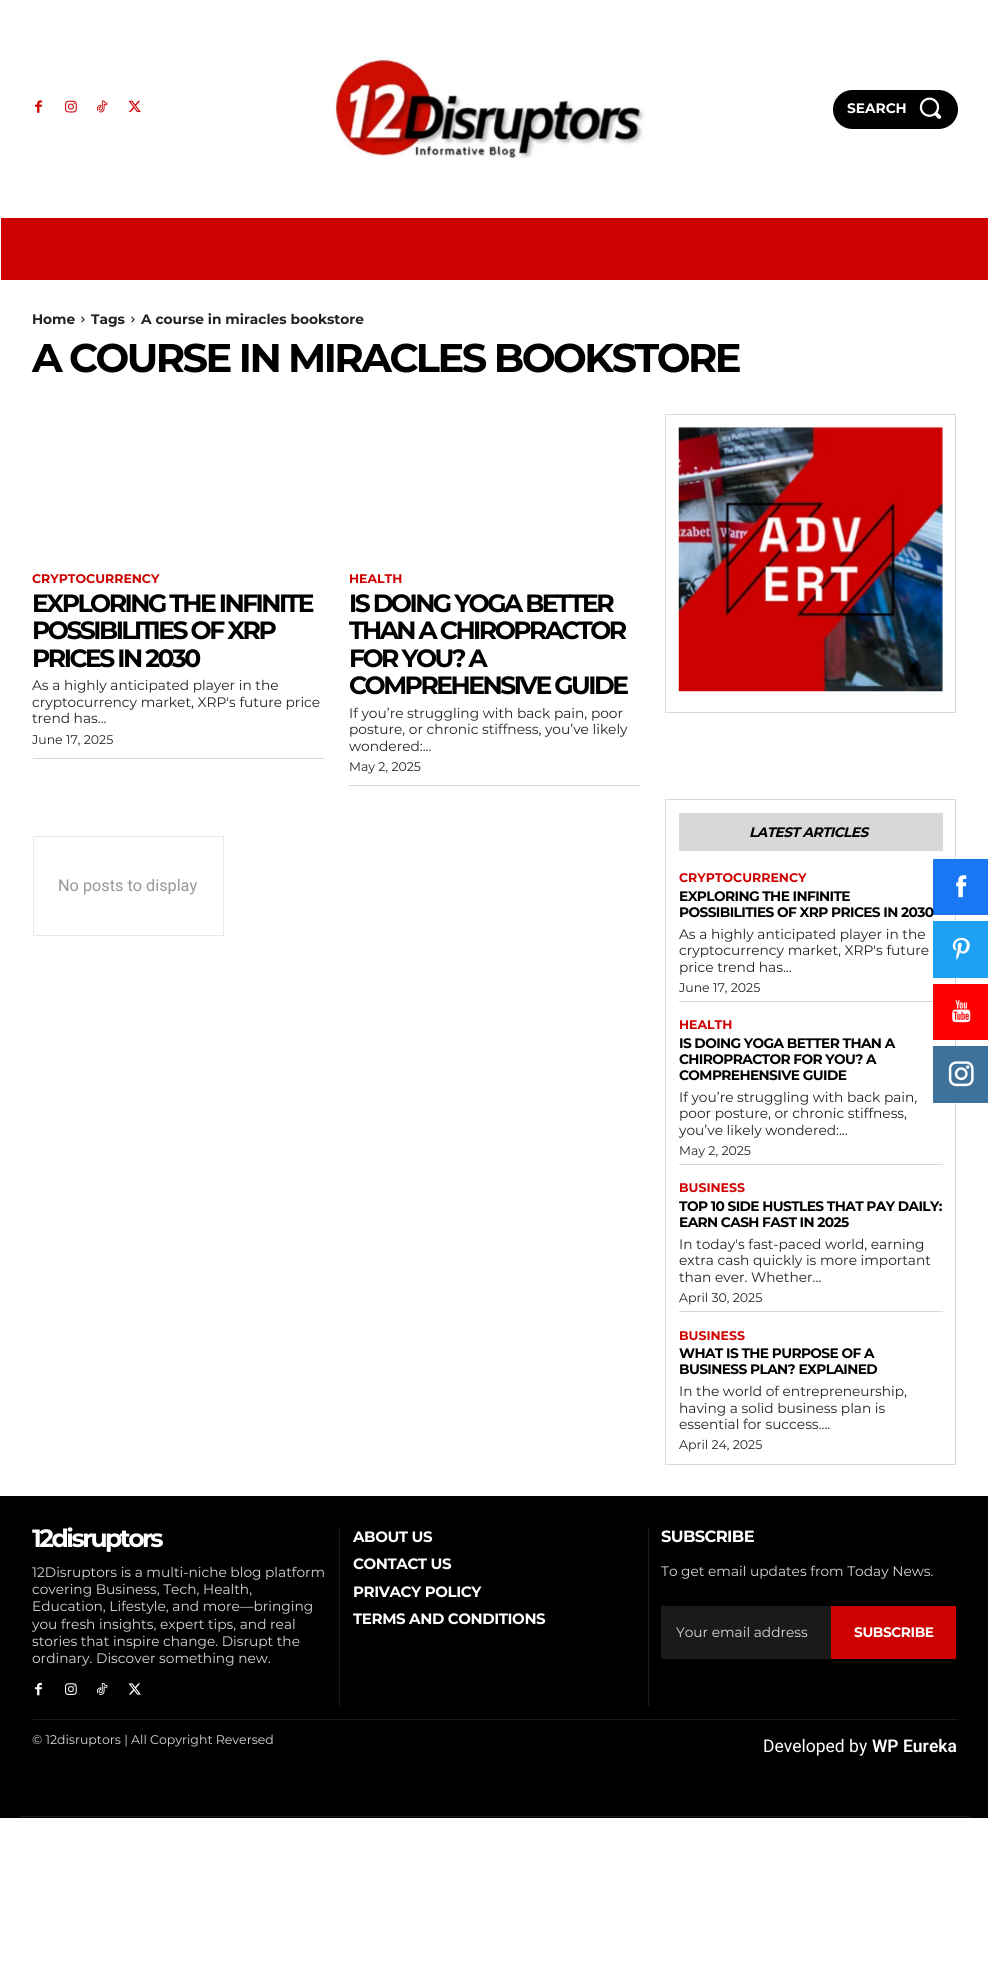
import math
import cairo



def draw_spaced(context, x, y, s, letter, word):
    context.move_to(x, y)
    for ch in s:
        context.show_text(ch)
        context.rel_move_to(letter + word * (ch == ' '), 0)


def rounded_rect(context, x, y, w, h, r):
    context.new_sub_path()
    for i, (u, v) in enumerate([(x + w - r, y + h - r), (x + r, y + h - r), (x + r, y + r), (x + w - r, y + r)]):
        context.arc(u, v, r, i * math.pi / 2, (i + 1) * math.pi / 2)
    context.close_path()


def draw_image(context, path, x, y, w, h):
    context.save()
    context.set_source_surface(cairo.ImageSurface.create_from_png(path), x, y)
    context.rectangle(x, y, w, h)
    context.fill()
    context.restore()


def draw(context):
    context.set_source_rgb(1, 1, 1)
    context.paint()
    draw_image(context, "images/1.png", 35, 100, 7, 13)
    draw_image(context, "images/2.png", 65, 100, 12, 13)
    draw_image(context, "images/3.png", 97, 100, 11, 13)
    draw_image(context, "images/4.png", 128, 100, 13, 13)
    draw_image(context, "images/5.png", 332, 56, 313, 103)
    context.set_source_rgb(0, 0, 0)
    rounded_rect(context, 833, 90, 125, 39, 19.5)
    context.fill()
    draw_image(context, "images/6.png", 919, 97, 23, 22)
    context.set_source_rgb(206 / 255, 0, 0)
    context.rectangle(1, 218, 987, 62)
    context.fill()
    draw_image(context, "images/7.png", 81, 316, 4, 7)
    draw_image(context, "images/7.png", 131, 316, 4, 7)
    context.set_source_rgb(216 / 255, 216 / 255, 216 / 255)
    context.rectangle(33, 758, 291, 1)
    context.fill()
    context.rectangle(349, 785, 291, 1)
    context.fill()
    context.rectangle(665.5, 414.5, 290, 298)
    context.set_line_width(1)
    context.stroke()
    draw_image(context, "images/8.png", 678, 427, 265, 265)
    context.rectangle(33.5, 836.5, 190, 99)
    context.set_source_rgb(232 / 255, 232 / 255, 232 / 255)
    context.stroke()
    context.rectangle(665.5, 799.5, 290, 665)
    context.set_source_rgb(216 / 255, 216 / 255, 216 / 255)
    context.stroke()
    context.rectangle(679, 813, 264, 38)
    context.fill()
    context.rectangle(679, 1001, 254, 1)
    context.fill()
    context.rectangle(679, 1164, 264, 1)
    context.fill()
    context.rectangle(679, 1311, 264, 1)
    context.fill()
    context.set_source_rgb(0, 0, 0)
    context.rectangle(0, 1496, 988, 322)
    context.fill()
    context.set_source_rgb(26 / 255, 26 / 255, 26 / 255)
    context.rectangle(33, 1719, 925, 1)
    context.fill()
    context.rectangle(339, 1528, 1, 178)
    context.fill()
    draw_image(context, "images/9.png", 35, 1682, 7, 14)
    draw_image(context, "images/10.png", 65, 1683, 12, 12)
    draw_image(context, "images/11.png", 97, 1683, 11, 12)
    draw_image(context, "images/12.png", 128, 1683, 13, 12)
    context.rectangle(648, 1528, 1, 178)
    context.fill()
    context.rectangle(661, 1606, 170, 53)
    context.fill()
    context.set_source_rgb(206 / 255, 0, 0)
    context.rectangle(831, 1606, 125, 53)
    context.fill()
    context.set_source_rgb(26 / 255, 26 / 255, 26 / 255)
    context.rectangle(20, 1816, 950, 1)
    context.fill()
    context.set_source_rgb(24 / 255, 119 / 255, 242 / 255)
    context.rectangle(933, 859, 55, 56)
    context.fill()
    draw_image(context, "images/13.png", 956, 875, 11, 23)
    context.set_source_rgb(29 / 255, 161 / 255, 242 / 255)
    context.rectangle(933, 921, 55, 57)
    context.fill()
    draw_image(context, "images/14.png", 952, 937, 18, 23)
    context.set_source_rgb(1, 0, 0)
    context.rectangle(933, 984, 55, 56)
    context.fill()
    draw_image(context, "images/15.png", 952, 1000, 19, 23)
    context.set_source_rgb(63 / 255, 114 / 255, 155 / 255)
    context.rectangle(933, 1046, 55, 57)
    context.fill()
    draw_image(context, "images/16.png", 948, 1061, 26, 26)
    context.select_font_face("Montserrat", cairo.FontSlant.NORMAL, cairo.FontWeight.BOLD)
    context.set_font_size(13.75)
    context.set_source_rgb(1, 1, 1)
    context.move_to(847, 113)
    context.show_text("SEARCH")
    context.set_source_rgb(34 / 255, 34 / 255, 34 / 255)
    context.move_to(32, 324)
    context.show_text("Home")
    context.move_to(91, 324)
    context.show_text("Tags")
    context.move_to(141, 324)
    context.show_text("A course in miracles bookstore")
    context.set_font_size(40)
    context.set_source_rgb(0, 0, 0)
    draw_spaced(context, 32, 372, "A COURSE IN MIRACLES BOOKSTORE", -2.5, 0)
    context.set_font_size(12.5)
    context.set_source_rgb(206 / 255, 0, 0)
    context.move_to(32, 583)
    context.show_text("CRYPTOCURRENCY")
    context.set_font_size(25)
    context.set_source_rgb(0, 0, 0)
    draw_spaced(context, 32, 612, "EXPLORING THE INFINITE", -2.5, 0)
    draw_spaced(context, 32, 639, "POSSIBILITIES OF XRP", -2.5, 0)
    draw_spaced(context, 32, 667, "PRICES IN 2030", -2.5, 0)
    context.select_font_face("Montserrat")
    context.set_font_size(13.75)
    context.set_source_rgb(34 / 255, 34 / 255, 34 / 255)
    context.move_to(32, 690)
    context.show_text("As a highly anticipated player in the")
    context.move_to(32, 707)
    context.show_text("cryptocurrency market, XRP's future price")
    context.move_to(32, 723)
    context.show_text("trend has...")
    context.set_font_size(12.5)
    context.move_to(32, 744)
    context.show_text("June 17, 2025")
    context.select_font_face("Montserrat", cairo.FontSlant.NORMAL, cairo.FontWeight.BOLD)
    context.set_source_rgb(206 / 255, 0, 0)
    context.move_to(349, 583)
    context.show_text("HEALTH")
    context.set_font_size(25)
    context.set_source_rgb(0, 0, 0)
    draw_spaced(context, 349, 612, "IS DOING YOGA BETTER", -2.5, 0)
    draw_spaced(context, 349, 639, "THAN A CHIROPRACTOR", -2.5, 0)
    draw_spaced(context, 349, 667, "FOR YOU? A", -2.5, 0)
    draw_spaced(context, 349, 694, "COMPREHENSIVE GUIDE", -2.5, 0)
    context.select_font_face("Montserrat")
    context.set_font_size(13.75)
    context.set_source_rgb(34 / 255, 34 / 255, 34 / 255)
    context.move_to(349, 718)
    context.show_text("If you’re struggling with back pain, poor")
    context.move_to(349, 734)
    context.show_text("posture, or chronic stiffness, you’ve likely")
    context.move_to(349, 751)
    context.show_text("wondered:...")
    context.set_font_size(12.5)
    context.move_to(349, 771)
    context.show_text("May 2, 2025")
    context.select_font_face("Roboto")
    context.set_font_size(16.25)
    context.set_source_rgb(151 / 255, 151 / 255, 151 / 255)
    context.move_to(58, 891)
    context.show_text("No posts to display")
    context.select_font_face("Montserrat", cairo.FontSlant.ITALIC, cairo.FontWeight.BOLD)
    context.set_font_size(13.75)
    context.set_source_rgb(0, 0, 0)
    draw_spaced(context, 749, 837, "LATEST ARTICLES", -0.6, 0)
    context.select_font_face("Montserrat", cairo.FontSlant.NORMAL, cairo.FontWeight.BOLD)
    context.set_font_size(12.5)
    context.set_source_rgb(206 / 255, 0, 0)
    context.move_to(679, 882)
    context.show_text("CRYPTOCURRENCY")
    context.set_font_size(13.75)
    context.set_source_rgb(0, 0, 0)
    draw_spaced(context, 679, 901, "EXPLORING THE INFINITE", -0.6, 0)
    draw_spaced(context, 679, 917, "POSSIBILITIES OF XRP PRICES IN 2030", -0.6, 0)
    context.select_font_face("Montserrat")
    context.set_source_rgb(34 / 255, 34 / 255, 34 / 255)
    context.move_to(679, 939)
    context.show_text("As a highly anticipated player in the")
    context.move_to(679, 955)
    context.show_text("cryptocurrency market, XRP's future")
    context.move_to(679, 972)
    context.show_text("price trend has...")
    context.set_font_size(12.5)
    context.move_to(679, 992)
    context.show_text("June 17, 2025")
    context.select_font_face("Montserrat", cairo.FontSlant.NORMAL, cairo.FontWeight.BOLD)
    context.set_source_rgb(206 / 255, 0, 0)
    context.move_to(679, 1029)
    context.show_text("HEALTH")
    context.set_font_size(13.75)
    context.set_source_rgb(0, 0, 0)
    draw_spaced(context, 679, 1048, "IS DOING YOGA BETTER THAN A", -0.6, 0)
    draw_spaced(context, 679, 1064, "CHIROPRACTOR FOR YOU? A", -0.6, 0)
    draw_spaced(context, 679, 1080, "COMPREHENSIVE GUIDE", -0.6, 0)
    context.select_font_face("Montserrat")
    context.set_source_rgb(34 / 255, 34 / 255, 34 / 255)
    context.move_to(679, 1102)
    context.show_text("If you’re struggling with back pain,")
    context.move_to(679, 1118)
    context.show_text("poor posture, or chronic stiffness,")
    context.move_to(679, 1135)
    context.show_text("you’ve likely wondered:...")
    context.set_font_size(12.5)
    context.move_to(679, 1155)
    context.show_text("May 2, 2025")
    context.select_font_face("Montserrat", cairo.FontSlant.NORMAL, cairo.FontWeight.BOLD)
    context.set_source_rgb(206 / 255, 0, 0)
    context.move_to(679, 1192)
    context.show_text("BUSINESS")
    context.set_font_size(13.75)
    context.set_source_rgb(0, 0, 0)
    draw_spaced(context, 679, 1211, "TOP 10 SIDE HUSTLES THAT PAY DAILY:", -0.6, 0)
    draw_spaced(context, 679, 1227, "EARN CASH FAST IN 2025", -0.6, 0)
    context.select_font_face("Montserrat")
    context.set_source_rgb(34 / 255, 34 / 255, 34 / 255)
    context.move_to(679, 1249)
    context.show_text("In today's fast-paced world, earning")
    context.move_to(679, 1265)
    context.show_text("extra cash quickly is more important")
    context.move_to(679, 1282)
    context.show_text("than ever. Whether...")
    context.set_font_size(12.5)
    context.move_to(679, 1302)
    context.show_text("April 30, 2025")
    context.select_font_face("Montserrat", cairo.FontSlant.NORMAL, cairo.FontWeight.BOLD)
    context.set_source_rgb(206 / 255, 0, 0)
    context.move_to(679, 1340)
    context.show_text("BUSINESS")
    context.set_font_size(13.75)
    context.set_source_rgb(0, 0, 0)
    draw_spaced(context, 679, 1358, "WHAT IS THE PURPOSE OF A", -0.6, 0)
    draw_spaced(context, 679, 1374, "BUSINESS PLAN? EXPLAINED", -0.6, 0)
    context.select_font_face("Montserrat")
    context.set_source_rgb(34 / 255, 34 / 255, 34 / 255)
    context.move_to(679, 1396)
    context.show_text("In the world of entrepreneurship,")
    context.move_to(679, 1413)
    context.show_text("having a solid business plan is")
    context.move_to(679, 1429)
    context.show_text("essential for success....")
    context.set_font_size(12.5)
    context.move_to(679, 1449)
    context.show_text("April 24, 2025")
    context.select_font_face("Montserrat", cairo.FontSlant.NORMAL, cairo.FontWeight.BOLD)
    context.set_font_size(25)
    context.set_source_rgb(1, 1, 1)
    draw_spaced(context, 32, 1547, "12disruptors", -2.5, 0)
    context.select_font_face("Montserrat")
    context.set_font_size(13.75)
    context.set_source_rgb(216 / 255, 216 / 255, 216 / 255)
    context.move_to(32, 1577)
    context.show_text("12Disruptors is a multi-niche blog platform")
    context.move_to(32, 1594)
    context.show_text("covering Business, Tech, Health,")
    context.move_to(32, 1611)
    context.show_text("Education, Lifestyle, and more—bringing")
    context.move_to(32, 1629)
    context.show_text("you fresh insights, expert tips, and real")
    context.move_to(32, 1646)
    context.show_text("stories that inspire change. Disrupt the")
    context.move_to(32, 1663)
    context.show_text("ordinary. Discover something new.")
    context.select_font_face("Montserrat", cairo.FontSlant.NORMAL, cairo.FontWeight.BOLD)
    context.set_font_size(15)
    context.set_source_rgb(1, 1, 1)
    draw_spaced(context, 353, 1542, "ABOUT US", -0.4, 0)
    draw_spaced(context, 353, 1569, "CONTACT US", -0.4, 0)
    draw_spaced(context, 353, 1597, "PRIVACY POLICY", -0.4, 0)
    context.save()
    context.rectangle(353, 1528, 282, 101)
    context.clip()
    draw_spaced(context, 353, 1624, "TERMS AND CONDITIONS", -0.4, 0)
    context.restore()
    context.set_font_size(16.25)
    draw_spaced(context, 661, 1542, "SUBSCRIBE", -0.6, 0)
    context.select_font_face("Montserrat")
    context.set_font_size(13.75)
    context.set_source_rgb(216 / 255, 216 / 255, 216 / 255)
    context.move_to(661, 1576)
    context.show_text("To get email updates from Today News.")
    context.move_to(676, 1637)
    context.show_text("Your email address")
    context.select_font_face("Montserrat", cairo.FontSlant.NORMAL, cairo.FontWeight.BOLD)
    context.set_source_rgb(1, 1, 1)
    draw_spaced(context, 854, 1637, "SUBSCRIBE", -0.4, 0)
    context.select_font_face("Montserrat")
    context.set_font_size(12.5)
    context.set_source_rgb(216 / 255, 216 / 255, 216 / 255)
    context.move_to(32, 1744)
    context.show_text("© 12disruptors | All Copyright Reversed")
    context.select_font_face("Roboto")
    context.set_font_size(17.5)
    context.set_source_rgb(1, 1, 1)
    context.move_to(763, 1752)
    context.show_text("Developed by")
    context.select_font_face("Roboto SemiBold")
    context.move_to(872, 1752)
    context.show_text("WP Eureka")


surface = cairo.ImageSurface(cairo.Format.RGB24, 988, 1966)
context = cairo.Context(surface)
options = cairo.FontOptions()
options.set_hint_metrics(cairo.HintMetrics.OFF)
options.set_hint_style(cairo.HintStyle.NONE)
context.set_font_options(options)
context.set_miter_limit(4)
draw(context)
surface.write_to_png("out.png")
